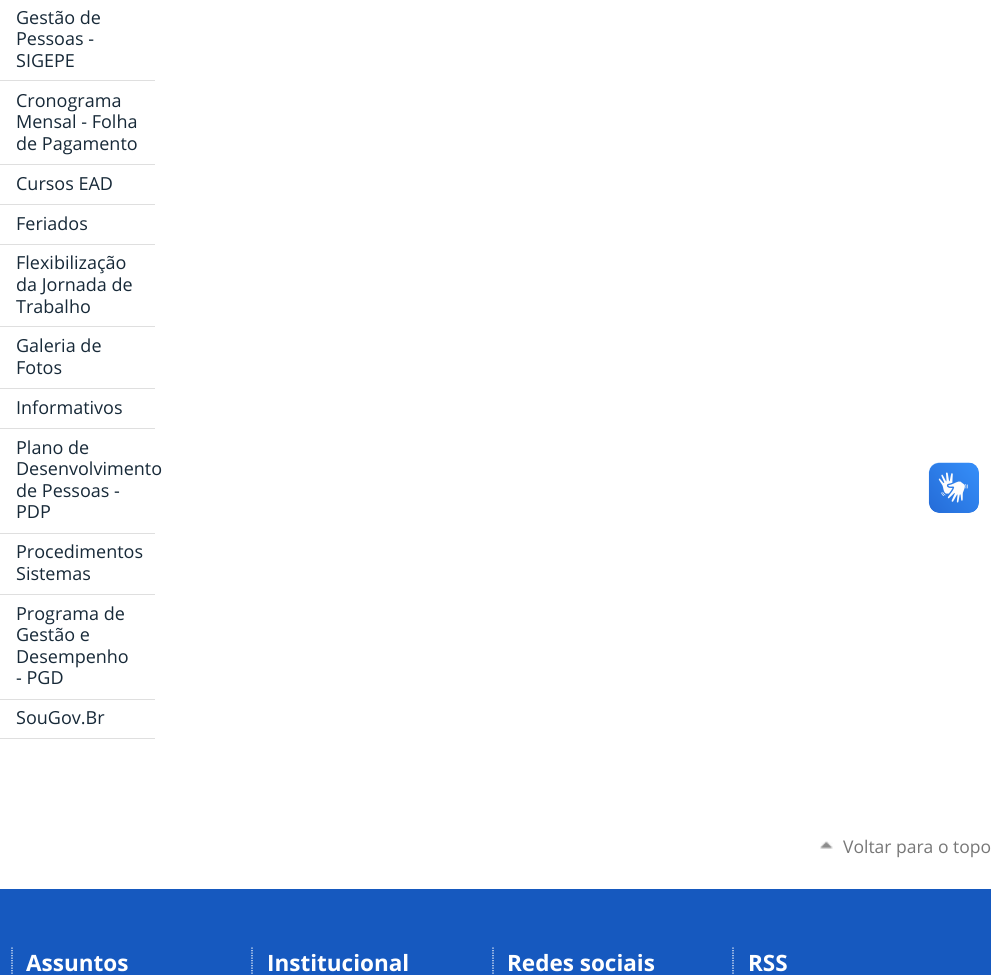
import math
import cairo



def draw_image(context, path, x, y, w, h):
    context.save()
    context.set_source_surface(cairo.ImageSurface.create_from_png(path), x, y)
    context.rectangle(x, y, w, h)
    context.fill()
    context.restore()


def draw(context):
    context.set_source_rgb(1, 1, 1)
    context.paint()
    context.set_source_rgb(223 / 255, 223 / 255, 223 / 255)
    context.rectangle(0, 80, 155, 1)
    context.fill()
    context.rectangle(0, 164, 155, 1)
    context.fill()
    context.rectangle(0, 204, 155, 1)
    context.fill()
    context.rectangle(0, 244, 155, 1)
    context.fill()
    context.rectangle(0, 326, 155, 1)
    context.fill()
    context.rectangle(0, 388, 155, 1)
    context.fill()
    context.rectangle(0, 428, 155, 1)
    context.fill()
    context.rectangle(0, 533, 155, 1)
    context.fill()
    context.rectangle(0, 594, 155, 1)
    context.fill()
    context.rectangle(0, 699, 155, 1)
    context.fill()
    context.rectangle(0, 738, 155, 1)
    context.fill()
    draw_image(context, "images/1.png", 820, 841, 13, 8)
    context.set_source_rgb(22 / 255, 89 / 255, 191 / 255)
    context.rectangle(0, 889, 991, 86)
    context.fill()
    context.new_path()
    context.move_to(12, 947.5)
    context.line_to(12, 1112.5)
    context.set_source_rgb(1, 1, 1)
    context.set_line_width(1.2)
    context.set_dash([1.25, 1.25])
    context.stroke()
    context.new_path()
    context.move_to(252, 947.5)
    context.line_to(252, 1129)
    context.stroke()
    context.new_path()
    context.move_to(493, 947.5)
    context.line_to(493, 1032.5)
    context.stroke()
    context.new_path()
    context.move_to(733, 947.5)
    context.line_to(733, 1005)
    context.stroke()
    draw_image(context, "images/2.png", 928, 462, 51, 51)
    draw_image(context, "images/3.png", 929, 463, 50, 50)
    context.select_font_face("Open Sans")
    context.set_font_size(18)
    context.set_source_rgb(23 / 255, 41 / 255, 56 / 255)
    context.move_to(16, 24)
    context.show_text("Gestão de")
    context.move_to(16, 45)
    context.show_text("Pessoas -")
    context.move_to(16, 67)
    context.show_text("SIGEPE")
    context.move_to(16, 107)
    context.show_text("Cronograma")
    context.move_to(16, 128)
    context.show_text("Mensal - Folha")
    context.move_to(16, 150)
    context.show_text("de Pagamento")
    context.move_to(16, 190)
    context.show_text("Cursos EAD")
    context.move_to(16, 230)
    context.show_text("Feriados")
    context.move_to(16, 269)
    context.show_text("Flexibilização")
    context.move_to(16, 291)
    context.show_text("da Jornada de")
    context.move_to(16, 313)
    context.show_text("Trabalho")
    context.move_to(16, 352)
    context.show_text("Galeria de")
    context.move_to(16, 374)
    context.show_text("Fotos")
    context.move_to(16, 414)
    context.show_text("Informativos")
    context.move_to(16, 454)
    context.show_text("Plano de")
    context.move_to(16, 475)
    context.show_text("Desenvolvimento")
    context.move_to(16, 497)
    context.show_text("de Pessoas -")
    context.move_to(16, 518)
    context.show_text("PDP")
    context.move_to(16, 558)
    context.show_text("Procedimentos")
    context.move_to(16, 580)
    context.show_text("Sistemas")
    context.move_to(16, 620)
    context.show_text("Programa de")
    context.move_to(16, 641)
    context.show_text("Gestão e")
    context.move_to(16, 663)
    context.show_text("Desempenho")
    context.move_to(16, 684)
    context.show_text("- PGD")
    context.move_to(16, 724)
    context.show_text("SouGov.Br")
    context.set_font_size(17.5)
    context.set_source_rgb(119 / 255, 119 / 255, 119 / 255)
    context.move_to(843, 853)
    context.show_text("Voltar para o topo")
    context.select_font_face("Open Sans", cairo.FontSlant.NORMAL, cairo.FontWeight.BOLD)
    context.set_font_size(22.5)
    context.set_source_rgb(1, 1, 1)
    context.move_to(26, 971)
    context.show_text("Assuntos")
    context.move_to(267, 971)
    context.show_text("Institucional")
    context.move_to(507, 971)
    context.show_text("Redes sociais")
    context.move_to(748, 971)
    context.show_text("RSS")


surface = cairo.ImageSurface(cairo.Format.RGB24, 991, 975)
context = cairo.Context(surface)
options = cairo.FontOptions()
options.set_hint_metrics(cairo.HintMetrics.OFF)
options.set_hint_style(cairo.HintStyle.NONE)
context.set_font_options(options)
context.set_miter_limit(4)
draw(context)
surface.write_to_png("out.png")
